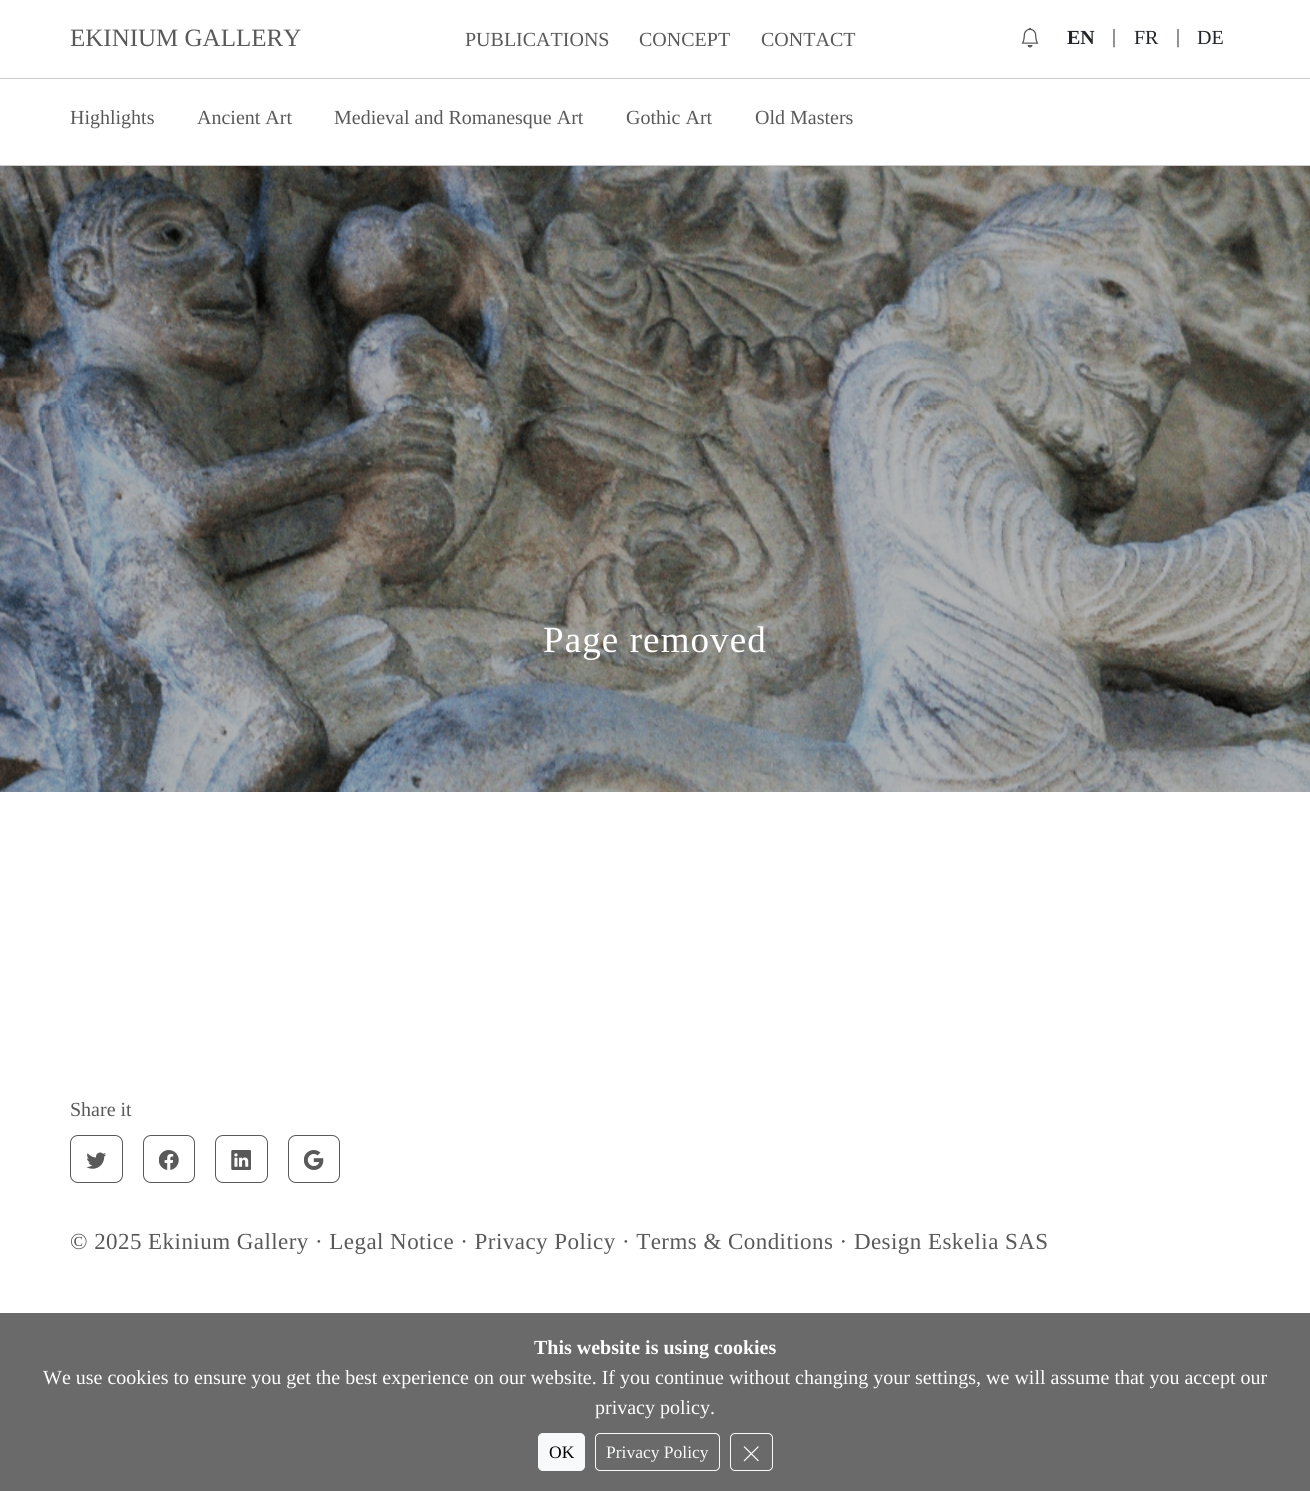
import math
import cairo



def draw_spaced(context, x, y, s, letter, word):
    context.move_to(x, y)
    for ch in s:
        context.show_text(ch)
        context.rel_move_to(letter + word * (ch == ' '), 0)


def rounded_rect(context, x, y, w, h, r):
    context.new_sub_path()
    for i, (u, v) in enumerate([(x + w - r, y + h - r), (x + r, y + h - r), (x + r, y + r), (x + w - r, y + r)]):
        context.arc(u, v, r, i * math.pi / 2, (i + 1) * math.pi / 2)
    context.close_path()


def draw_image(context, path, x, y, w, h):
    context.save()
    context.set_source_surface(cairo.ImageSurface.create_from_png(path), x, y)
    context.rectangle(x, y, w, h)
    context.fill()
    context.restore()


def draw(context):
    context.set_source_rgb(1, 1, 1)
    context.paint()
    context.set_source_rgb(204 / 255, 204 / 255, 204 / 255)
    context.rectangle(0, 78, 1310, 1)
    context.fill()
    draw_image(context, "images/1.png", 1021, 28, 18, 20)
    context.rectangle(0, 165, 1310, 1)
    context.fill()
    draw_image(context, "images/2.png", 0, 166, 1310, 626)
    rounded_rect(context, 70.5, 1135.5, 52, 47, 7.5)
    context.set_source_rgb(89 / 255, 89 / 255, 89 / 255)
    context.set_line_width(1)
    context.stroke()
    draw_image(context, "images/3.png", 86, 1152, 20, 17)
    rounded_rect(context, 143.5, 1135.5, 51, 47, 7.5)
    context.stroke()
    draw_image(context, "images/4.png", 159, 1150, 20, 20)
    rounded_rect(context, 215.5, 1135.5, 52, 47, 7.5)
    context.stroke()
    draw_image(context, "images/5.png", 231, 1150, 20, 20)
    rounded_rect(context, 288.5, 1135.5, 51, 47, 7.5)
    context.stroke()
    draw_image(context, "images/6.png", 304, 1150, 20, 20)
    context.set_source_rgb(106 / 255, 106 / 255, 106 / 255)
    context.rectangle(0, 1313, 1310, 178)
    context.fill()
    context.set_source_rgb(248 / 255, 249 / 255, 250 / 255)
    rounded_rect(context, 538.5, 1433.5, 46, 37, 4.5)
    context.fill_preserve()
    context.stroke()
    rounded_rect(context, 595.5, 1433.5, 124, 37, 4.5)
    context.stroke()
    rounded_rect(context, 730.5, 1433.5, 42, 37, 4.5)
    context.stroke()
    draw_image(context, "images/7.png", 743, 1446, 16, 16)
    context.select_font_face("Liberation Serif")
    context.set_font_size(25)
    context.set_source_rgb(89 / 255, 89 / 255, 89 / 255)
    context.move_to(70, 46)
    context.show_text("EKINIUM GALLERY")
    context.set_font_size(20)
    context.move_to(465, 46)
    context.show_text("PUBLICATIONS")
    context.move_to(639, 46)
    context.show_text("CONCEPT")
    context.move_to(761, 46)
    context.show_text("CONTACT")
    context.select_font_face("Liberation Serif", cairo.FontSlant.NORMAL, cairo.FontWeight.BOLD)
    context.set_source_rgb(33 / 255, 37 / 255, 41 / 255)
    context.move_to(1067, 44)
    context.show_text("EN")
    context.select_font_face("Liberation Serif")
    context.move_to(1112, 43)
    context.show_text("|")
    context.move_to(1134, 44)
    context.show_text("FR")
    context.move_to(1176, 43)
    context.show_text("|")
    context.move_to(1197, 44)
    context.show_text("DE")
    context.set_source_rgb(89 / 255, 89 / 255, 89 / 255)
    context.move_to(70, 124)
    context.show_text("Highlights")
    context.move_to(197, 124)
    context.show_text("Ancient Art")
    context.move_to(334, 124)
    context.show_text("Medieval and Romanesque Art")
    context.move_to(626, 124)
    context.show_text("Gothic Art")
    context.move_to(755, 124)
    context.show_text("Old Masters")
    context.set_font_size(37)
    context.set_source_rgb(1, 1, 1)
    draw_spaced(context, 543, 652, "Page removed", 1.1, 0)
    context.set_font_size(20)
    context.set_source_rgb(89 / 255, 89 / 255, 89 / 255)
    context.move_to(70, 1116)
    context.show_text("Share it")
    context.set_font_size(23)
    draw_spaced(context, 70, 1249, "© 2025 Ekinium Gallery · Legal Notice · Privacy Policy · Terms & Conditions · Design Eskelia SAS", 0.45, 0)
    context.select_font_face("Liberation Serif", cairo.FontSlant.NORMAL, cairo.FontWeight.BOLD)
    context.set_font_size(20)
    context.set_source_rgb(1, 1, 1)
    context.move_to(534, 1354)
    context.show_text("This website is using cookies")
    context.select_font_face("Liberation Serif")
    context.move_to(43, 1384)
    context.show_text("We use cookies to ensure you get the best experience on our website. If you continue without changing your settings, we will assume that you accept our")
    context.move_to(595, 1414)
    context.show_text("privacy policy.")
    context.set_font_size(17.5)
    context.set_source_rgb(0, 0, 0)
    context.move_to(549, 1458)
    context.show_text("OK")
    context.set_source_rgb(248 / 255, 249 / 255, 250 / 255)
    context.move_to(606, 1458)
    context.show_text("Privacy Policy")


surface = cairo.ImageSurface(cairo.Format.RGB24, 1310, 1491)
context = cairo.Context(surface)
options = cairo.FontOptions()
options.set_hint_metrics(cairo.HintMetrics.OFF)
options.set_hint_style(cairo.HintStyle.NONE)
context.set_font_options(options)
context.set_miter_limit(4)
draw(context)
surface.write_to_png("out.png")
